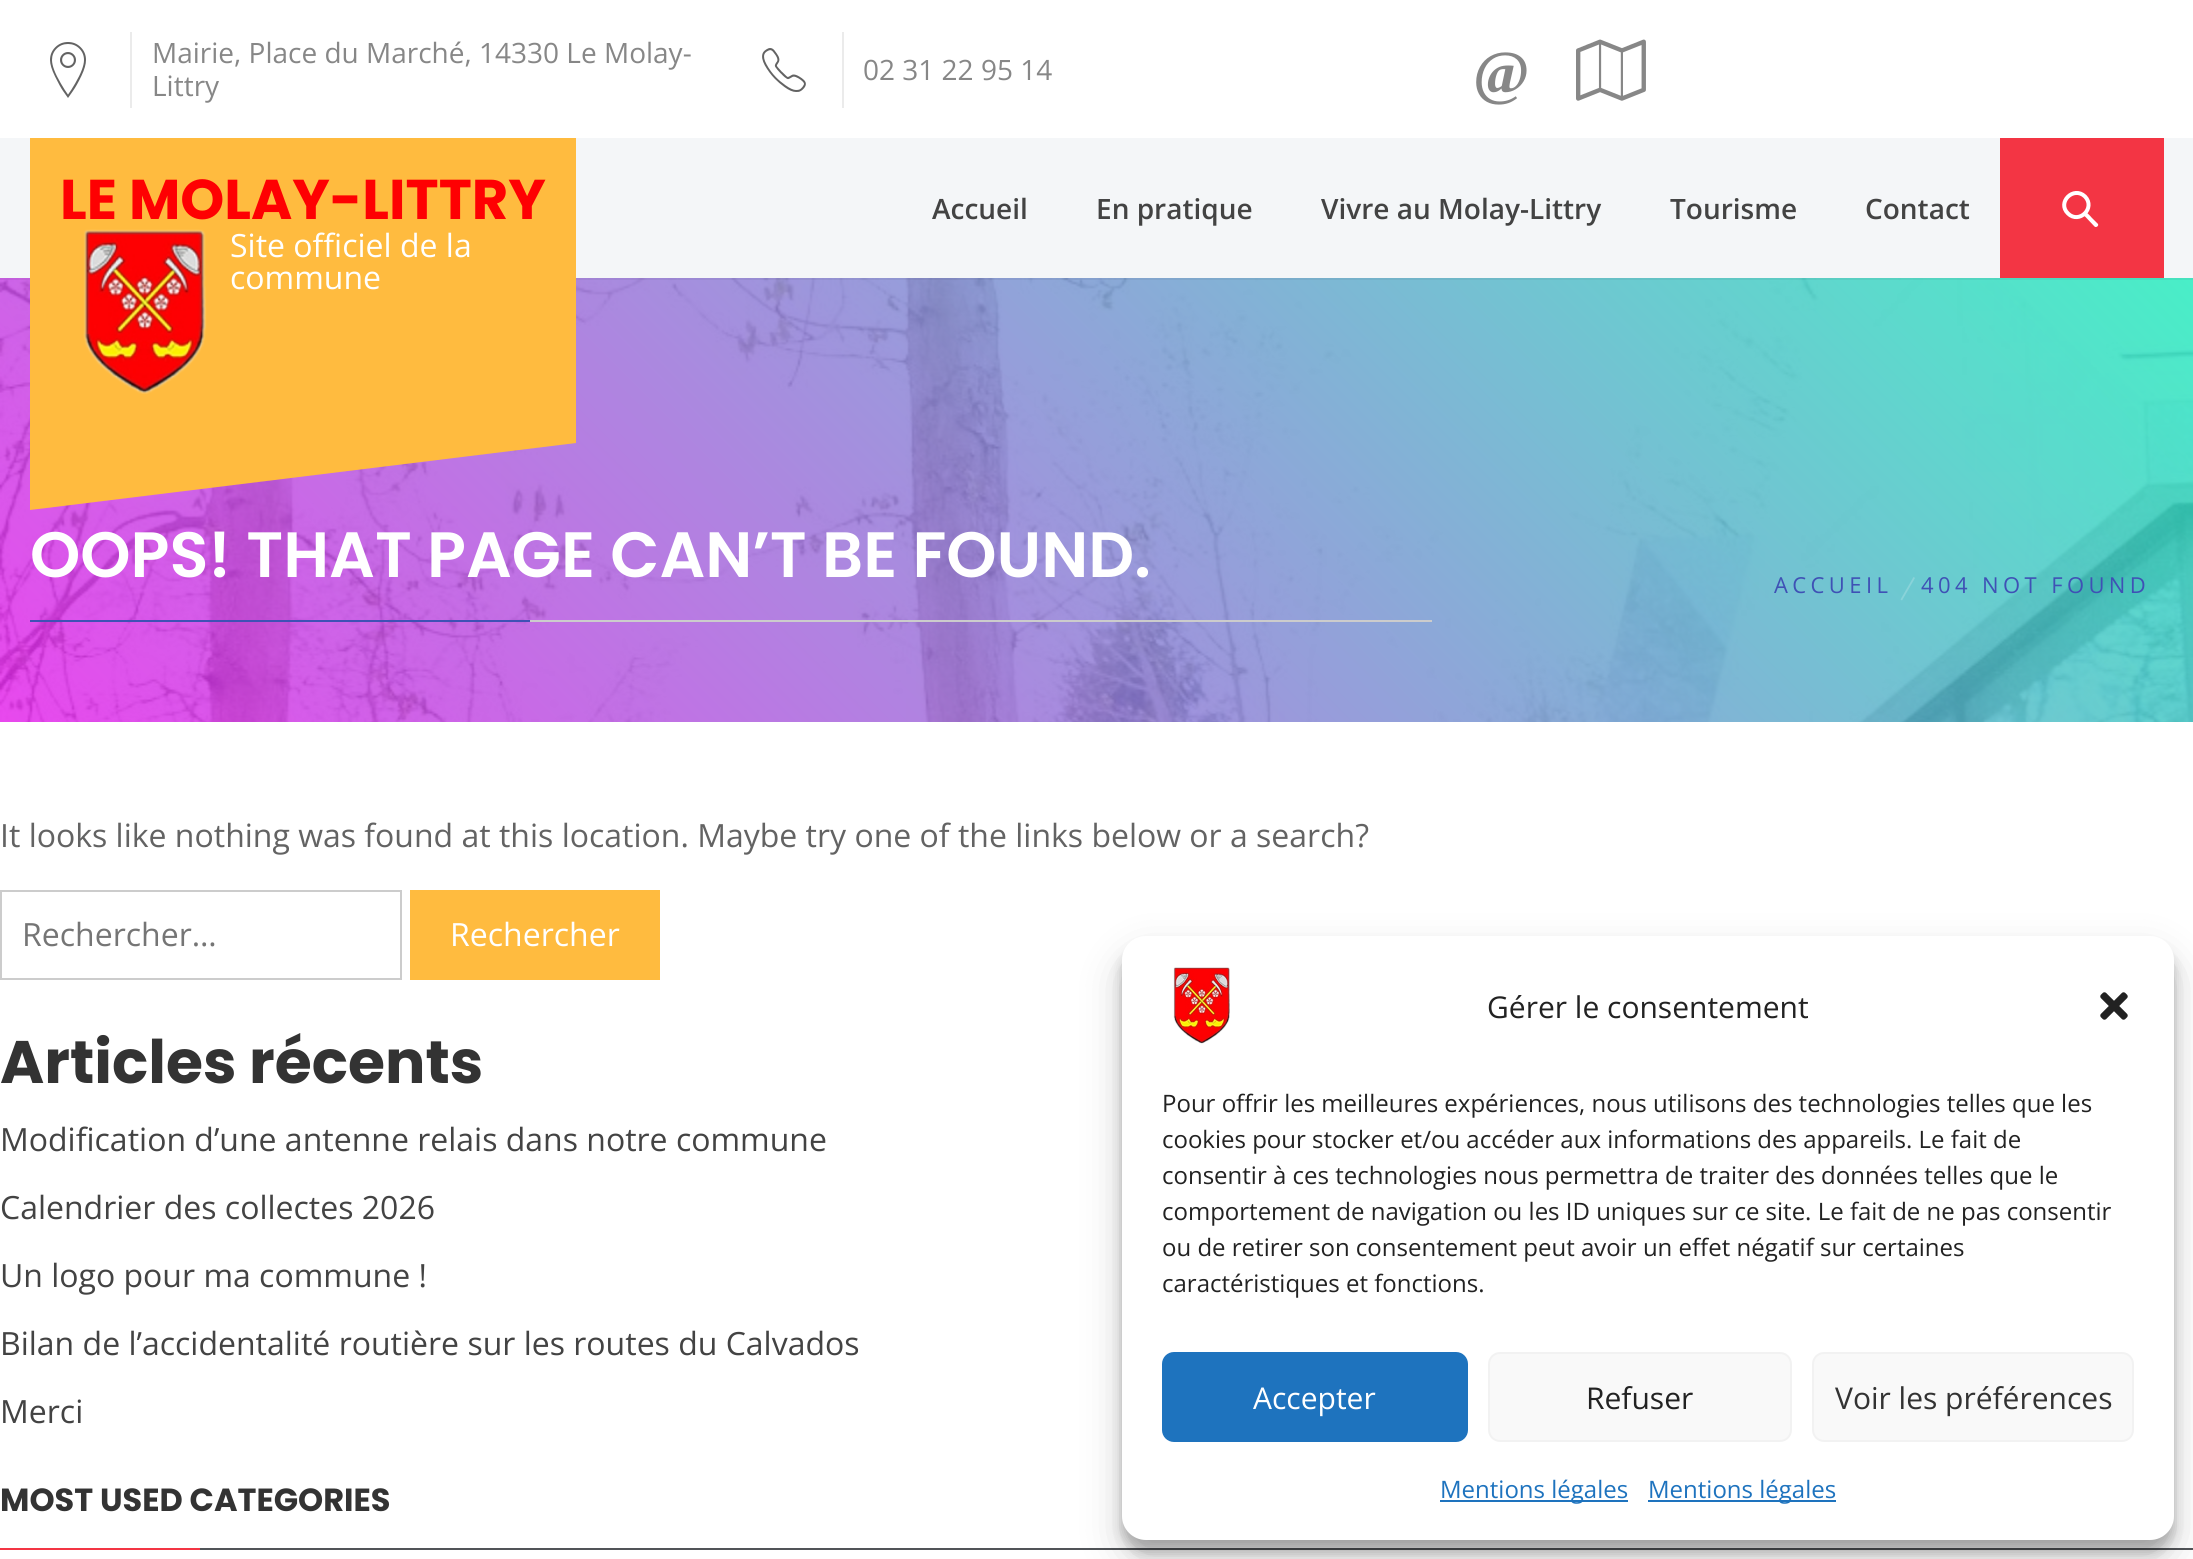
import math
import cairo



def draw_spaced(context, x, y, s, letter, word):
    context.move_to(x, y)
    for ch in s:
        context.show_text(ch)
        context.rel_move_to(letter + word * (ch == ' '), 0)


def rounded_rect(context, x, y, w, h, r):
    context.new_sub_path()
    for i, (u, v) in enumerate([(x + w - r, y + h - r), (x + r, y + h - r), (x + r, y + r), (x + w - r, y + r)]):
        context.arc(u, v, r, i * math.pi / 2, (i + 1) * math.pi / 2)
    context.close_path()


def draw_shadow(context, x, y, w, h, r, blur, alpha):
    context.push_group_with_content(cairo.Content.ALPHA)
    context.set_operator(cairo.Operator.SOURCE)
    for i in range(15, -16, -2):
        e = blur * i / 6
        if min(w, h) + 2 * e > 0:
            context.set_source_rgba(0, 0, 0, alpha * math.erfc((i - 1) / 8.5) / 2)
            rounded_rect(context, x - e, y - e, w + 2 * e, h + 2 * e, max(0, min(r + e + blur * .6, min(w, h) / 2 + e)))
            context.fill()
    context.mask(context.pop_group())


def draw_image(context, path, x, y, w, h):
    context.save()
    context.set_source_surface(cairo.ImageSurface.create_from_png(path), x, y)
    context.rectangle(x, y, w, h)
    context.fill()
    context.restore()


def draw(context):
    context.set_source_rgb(1, 1, 1)
    context.paint()
    draw_image(context, "images/1.png", 50, 42, 36, 56)
    context.set_source_rgb(235 / 255, 235 / 255, 235 / 255)
    context.rectangle(130, 32, 2, 76)
    context.fill()
    draw_image(context, "images/2.png", 762, 48, 44, 44)
    context.rectangle(842, 32, 2, 76)
    context.fill()
    draw_image(context, "images/3.png", 1576, 39, 70, 62)
    draw_image(context, "images/5.png", 0, 278, 2193, 444)
    context.set_source_rgba(0, 0, 0, 0.05)
    context.rectangle(0, 278, 2193, 2)
    context.fill()
    context.set_source_rgb(244 / 255, 246 / 255, 248 / 255)
    context.rectangle(0, 138, 2193, 140)
    context.fill()
    context.set_source_rgb(1, 187 / 255, 63 / 255)
    context.rectangle(30, 138, 546, 92)
    context.fill()
    context.new_path()
    context.move_to(30, 230)
    context.line_to(576, 163)
    context.line_to(576, 443)
    context.line_to(30, 510)
    context.close_path()
    context.fill()
    draw_image(context, "images/4.png", 83, 229, 124, 165)
    context.set_source_rgb(243 / 255, 53 / 255, 68 / 255)
    context.rectangle(2000, 138, 164, 140)
    context.fill()
    context.set_source_rgb(1, 1, 1)
    context.new_path()
    context.move_to(2094.5, 226.5)
    context.line_to(2085.5, 217)
    context.curve_to(2084.5, 216, 2082.5, 215, 2083, 213.5)
    context.curve_to(2084, 208, 2091.5, 217.5, 2092, 218)
    context.line_to(2098, 224)
    context.curve_to(2099, 226, 2096, 228, 2094.5, 226.5)
    context.close_path()
    context.fill()
    context.new_path()
    context.move_to(2068, 213.5)
    context.curve_to(2056.5, 202.5, 2073.5, 185.5, 2085, 196.5)
    context.curve_to(2096, 208, 2079, 224.5, 2068, 213.5)
    context.close_path()
    context.set_line_width(4)
    context.stroke()
    context.set_source_rgb(204 / 255, 204 / 255, 204 / 255)
    context.rectangle(530, 620, 902, 2)
    context.fill()
    context.set_source_rgb(63 / 255, 81 / 255, 181 / 255)
    context.rectangle(30, 620, 500, 2)
    context.fill()
    context.set_source_rgb(138 / 255, 211 / 255, 217 / 255)
    context.new_path()
    context.move_to(1913.5, 577)
    context.line_to(1915, 578)
    context.line_to(1902, 600.5)
    context.line_to(1900.5, 599.5)
    context.close_path()
    context.fill()
    context.rectangle(1, 891, 400, 88)
    context.set_source_rgb(204 / 255, 204 / 255, 204 / 255)
    context.set_line_width(2)
    context.stroke()
    context.set_source_rgb(1, 187 / 255, 63 / 255)
    context.rectangle(410, 890, 250, 90)
    context.fill()
    context.set_source_rgb(81 / 255, 84 / 255, 88 / 255)
    context.rectangle(200, 1548, 1993, 2)
    context.fill()
    context.set_source_rgb(243 / 255, 53 / 255, 68 / 255)
    context.rectangle(0, 1548, 200, 2)
    context.fill()
    context.set_source_rgb(0, 0, 0)
    draw_shadow(context, 1122, 948, 1052, 604, 24, 6, 0.23)
    draw_shadow(context, 1122, 956, 1052, 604, 24, 20, 0.19)
    context.set_source_rgb(1, 1, 1)
    rounded_rect(context, 1122, 936, 1052, 604, 24)
    context.fill()
    draw_image(context, "images/6.png", 1173, 967, 57, 77)
    draw_image(context, "images/7.png", 2100, 992, 28, 28)
    context.set_source_rgb(30 / 255, 115 / 255, 190 / 255)
    rounded_rect(context, 1163, 1353, 304, 88, 11)
    context.fill_preserve()
    context.stroke()
    context.set_source_rgb(249 / 255, 249 / 255, 249 / 255)
    rounded_rect(context, 1489, 1353, 302, 88, 11)
    context.fill_preserve()
    context.set_source_rgb(242 / 255, 242 / 255, 242 / 255)
    context.stroke()
    context.set_source_rgb(249 / 255, 249 / 255, 249 / 255)
    rounded_rect(context, 1813, 1353, 320, 88, 11)
    context.fill_preserve()
    context.set_source_rgb(242 / 255, 242 / 255, 242 / 255)
    context.stroke()
    context.set_source_rgb(30 / 255, 115 / 255, 190 / 255)
    context.rectangle(1440, 1500, 188, 2)
    context.fill()
    context.rectangle(1648, 1500, 188, 2)
    context.fill()
    context.select_font_face("Open Sans")
    context.set_font_size(28)
    context.set_source_rgb(135 / 255, 135 / 255, 135 / 255)
    context.move_to(152, 63)
    context.show_text("Mairie, Place du Marché, 14330 Le Molay-")
    context.move_to(152, 96)
    context.show_text("Littry")
    context.move_to(863, 80)
    context.show_text("02 31 22 95 14")
    context.select_font_face("Liberation Serif", cairo.FontSlant.NORMAL, cairo.FontWeight.BOLD)
    context.set_font_size(61)
    context.move_to(1473, 93)
    context.show_text("@")
    context.select_font_face("Poppins", cairo.FontSlant.NORMAL, cairo.FontWeight.BOLD)
    context.set_font_size(56)
    context.set_source_rgb(254 / 255, 0, 2 / 255)
    context.move_to(60, 219)
    context.show_text("LE MOLAY-LITTRY")
    context.select_font_face("Open Sans")
    context.set_font_size(32)
    context.set_source_rgb(1, 1, 1)
    context.move_to(230, 257)
    context.show_text("Site officiel de la")
    context.move_to(230, 289)
    context.show_text("commune")
    context.select_font_face("Open Sans SemiBold")
    context.set_font_size(28)
    context.set_source_rgb(67 / 255, 67 / 255, 67 / 255)
    context.move_to(932, 219)
    context.show_text("Accueil")
    context.move_to(1096, 219)
    context.show_text("En pratique")
    context.move_to(1321, 219)
    context.show_text("Vivre au Molay-Littry")
    context.move_to(1670, 219)
    context.show_text("Tourisme")
    context.move_to(1865, 219)
    context.show_text("Contact")
    context.select_font_face("Poppins SemiBold")
    context.set_font_size(64)
    context.set_source_rgb(1, 1, 1)
    context.move_to(30, 577)
    context.show_text("OOPS! THAT PAGE CAN’T BE FOUND.")
    context.select_font_face("Open Sans")
    context.set_font_size(22)
    context.set_source_rgb(63 / 255, 81 / 255, 181 / 255)
    draw_spaced(context, 1774, 593, "ACCUEIL", 4.4, 0)
    draw_spaced(context, 1921, 593, "404 NOT FOUND", 4.4, 0)
    context.set_font_size(32)
    context.set_source_rgb(99 / 255, 99 / 255, 99 / 255)
    context.move_to(0, 847)
    context.show_text("It looks like nothing was found at this location. Maybe try one of the links below or a search?")
    context.set_source_rgb(117 / 255, 117 / 255, 117 / 255)
    context.move_to(22, 946)
    context.show_text("Rechercher…")
    context.set_source_rgb(1, 1, 1)
    context.move_to(450, 946)
    context.show_text("Rechercher")
    context.select_font_face("Poppins", cairo.FontSlant.NORMAL, cairo.FontWeight.BOLD)
    context.set_font_size(60)
    context.set_source_rgb(51 / 255, 51 / 255, 51 / 255)
    context.move_to(0, 1083)
    context.show_text("Articles récents")
    context.select_font_face("Open Sans")
    context.set_font_size(32)
    context.set_source_rgb(67 / 255, 67 / 255, 67 / 255)
    context.move_to(0, 1151)
    context.show_text("Modification d’une antenne relais dans notre commune")
    context.move_to(0, 1219)
    context.show_text("Calendrier des collectes 2026")
    context.move_to(0, 1287)
    context.show_text("Un logo pour ma commune !")
    context.move_to(0, 1355)
    context.show_text("Bilan de l’accidentalité routière sur les routes du Calvados")
    context.move_to(0, 1423)
    context.show_text("Merci")
    context.select_font_face("Poppins", cairo.FontSlant.NORMAL, cairo.FontWeight.BOLD)
    context.set_source_rgb(51 / 255, 51 / 255, 51 / 255)
    context.move_to(0, 1511)
    context.show_text("MOST USED CATEGORIES")
    context.select_font_face("Open Sans")
    context.set_font_size(30)
    context.set_source_rgb(34 / 255, 34 / 255, 34 / 255)
    context.move_to(1487, 1018)
    context.show_text("Gérer le consentement")
    context.set_font_size(24)
    context.move_to(1162, 1112)
    context.show_text("Pour offrir les meilleures expériences, nous utilisons des technologies telles que les")
    context.move_to(1162, 1148)
    context.show_text("cookies pour stocker et/ou accéder aux informations des appareils. Le fait de")
    context.move_to(1162, 1184)
    context.show_text("consentir à ces technologies nous permettra de traiter des données telles que le")
    context.move_to(1162, 1220)
    context.show_text("comportement de navigation ou les ID uniques sur ce site. Le fait de ne pas consentir")
    context.move_to(1162, 1256)
    context.show_text("ou de retirer son consentement peut avoir un effet négatif sur certaines")
    context.move_to(1162, 1292)
    context.show_text("caractéristiques et fonctions.")
    context.set_font_size(30)
    context.set_source_rgb(1, 1, 1)
    context.move_to(1253, 1409)
    context.show_text("Accepter")
    context.set_source_rgb(34 / 255, 34 / 255, 34 / 255)
    context.move_to(1586, 1409)
    context.show_text("Refuser")
    context.set_source_rgb(51 / 255, 51 / 255, 51 / 255)
    context.move_to(1835, 1409)
    context.show_text("Voir les préférences")
    context.set_font_size(24)
    context.set_source_rgb(30 / 255, 115 / 255, 190 / 255)
    context.move_to(1440, 1498)
    context.show_text("Mentions légales")
    context.move_to(1648, 1498)
    context.show_text("Mentions légales")


surface = cairo.ImageSurface(cairo.Format.RGB24, 2193, 1559)
context = cairo.Context(surface)
options = cairo.FontOptions()
options.set_hint_metrics(cairo.HintMetrics.OFF)
options.set_hint_style(cairo.HintStyle.NONE)
context.set_font_options(options)
context.set_miter_limit(4)
draw(context)
surface.write_to_png("out.png")
